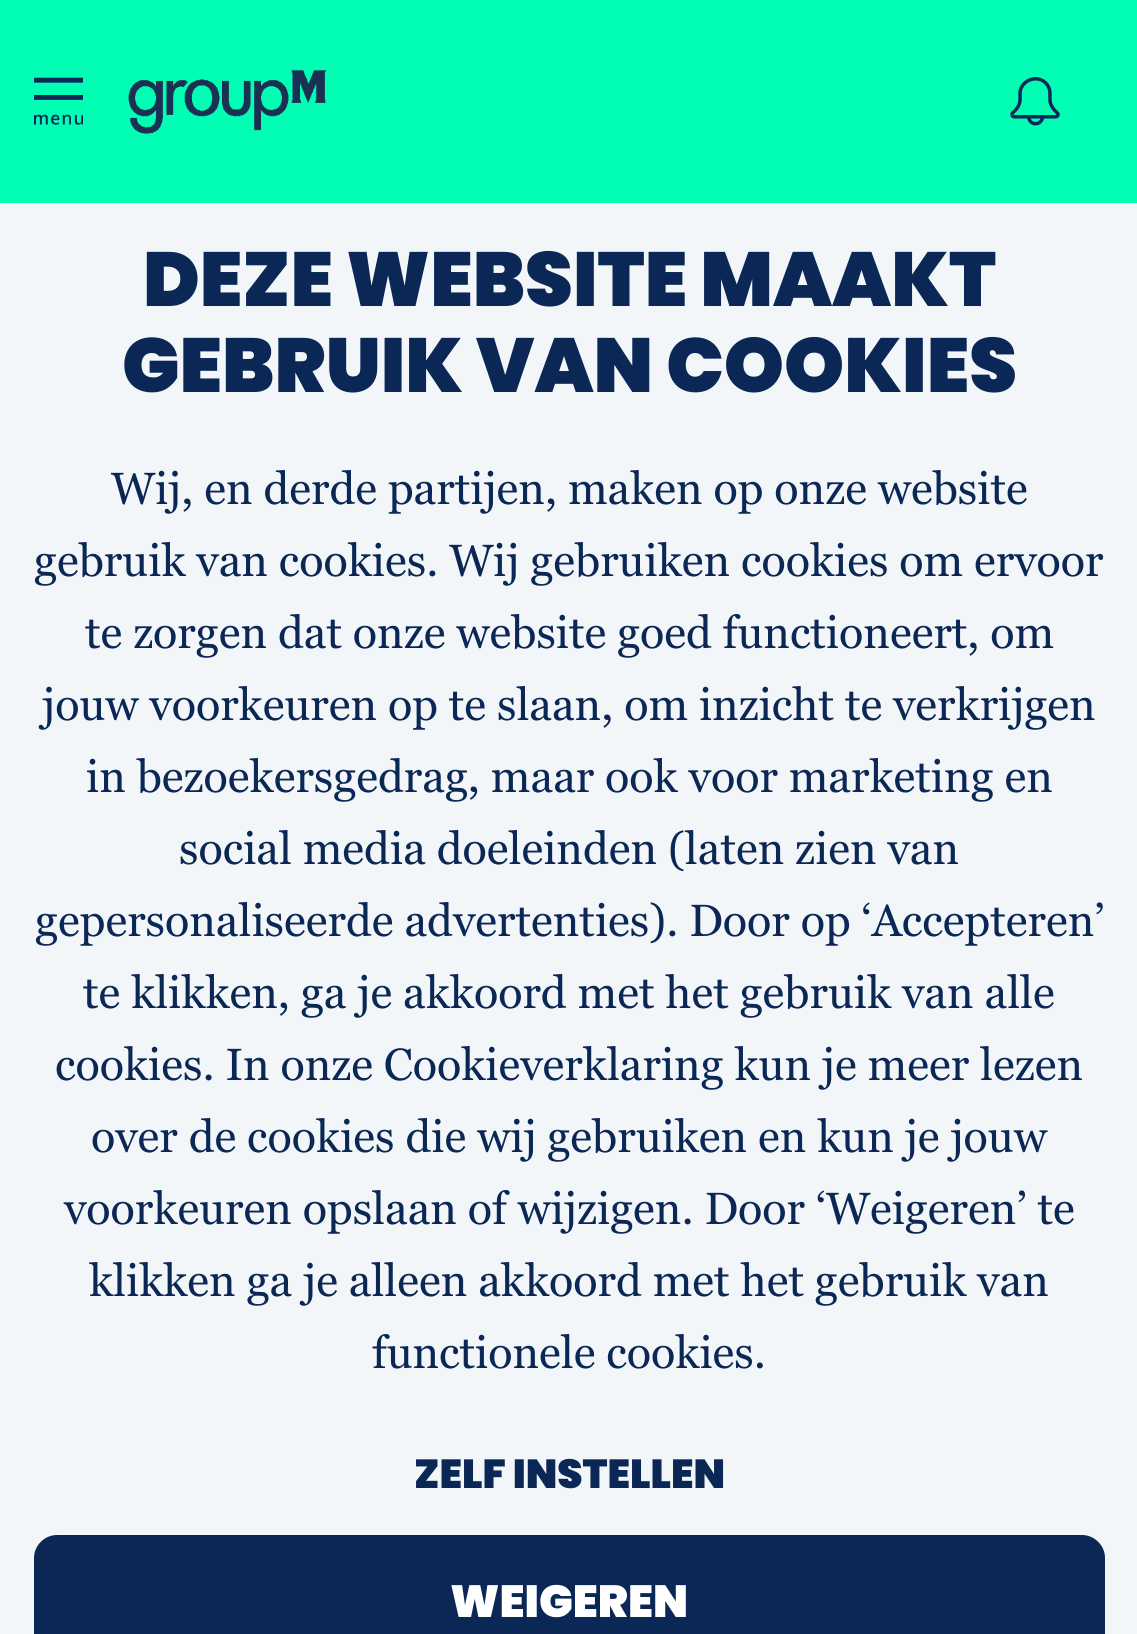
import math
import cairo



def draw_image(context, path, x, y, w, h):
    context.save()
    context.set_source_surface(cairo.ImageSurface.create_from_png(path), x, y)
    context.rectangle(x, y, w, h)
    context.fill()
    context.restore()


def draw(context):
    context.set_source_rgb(242 / 255, 246 / 255, 248 / 255)
    context.paint()
    context.set_source_rgb(0, 1, 180 / 255)
    context.rectangle(0, 0, 1137, 203)
    context.fill()
    draw_image(context, "images/1.png", 34, 77, 49, 48)
    draw_image(context, "images/2.png", 128, 69, 199, 65)
    draw_image(context, "images/3.png", 1010, 77, 50, 49)
    context.set_source_rgb(10 / 255, 39 / 255, 86 / 255)
    context.new_path()
    context.move_to(57, 1535)
    context.line_to(1082, 1535)
    context.curve_to(1094.5, 1535, 1105, 1545.5, 1105, 1558)
    context.line_to(1105, 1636)
    context.line_to(34, 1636)
    context.line_to(34, 1558)
    context.curve_to(34, 1545.5, 44.5, 1535, 57, 1535)
    context.close_path()
    context.fill()
    context.select_font_face("Poppins Black")
    context.set_font_size(76.5)
    context.move_to(143, 306)
    context.show_text("DEZE WEBSITE MAAKT")
    context.move_to(122, 392)
    context.show_text("GEBRUIK VAN COOKIES")
    context.select_font_face("Georgia")
    context.set_font_size(45)
    context.move_to(111, 504)
    context.show_text("Wij, en derde partijen, maken op onze website")
    context.move_to(34, 576)
    context.show_text("gebruik van cookies. Wij gebruiken cookies om ervoor")
    context.move_to(85, 648)
    context.show_text("te zorgen dat onze website goed functioneert, om")
    context.move_to(42, 720)
    context.show_text("jouw voorkeuren op te slaan, om inzicht te verkrijgen")
    context.move_to(86, 792)
    context.show_text("in bezoekersgedrag, maar ook voor marketing en")
    context.move_to(179, 864)
    context.show_text("social media doeleinden (laten zien van")
    context.move_to(35, 936)
    context.show_text("gepersonaliseerde advertenties). Door op ‘Accepteren’")
    context.move_to(83, 1008)
    context.show_text("te klikken, ga je akkoord met het gebruik van alle")
    context.move_to(55, 1080)
    context.show_text("cookies. In onze Cookieverklaring kun je meer lezen")
    context.move_to(91, 1152)
    context.show_text("over de cookies die wij gebruiken en kun je jouw")
    context.move_to(64, 1224)
    context.show_text("voorkeuren opslaan of wijzigen. Door ‘Weigeren’ te")
    context.move_to(89, 1296)
    context.show_text("klikken ga je alleen akkoord met het gebruik van")
    context.move_to(372, 1368)
    context.show_text("functionele cookies.")
    context.select_font_face("Poppins Black")
    context.set_font_size(40.5)
    context.move_to(414, 1488)
    context.show_text("ZELF INSTELLEN")
    context.set_font_size(45)
    context.set_source_rgb(1, 1, 1)
    context.move_to(450, 1617)
    context.show_text("WEIGEREN")


surface = cairo.ImageSurface(cairo.Format.RGB24, 1137, 1634)
context = cairo.Context(surface)
options = cairo.FontOptions()
options.set_hint_metrics(cairo.HintMetrics.OFF)
options.set_hint_style(cairo.HintStyle.NONE)
context.set_font_options(options)
context.set_miter_limit(4)
draw(context)
surface.write_to_png("out.png")
